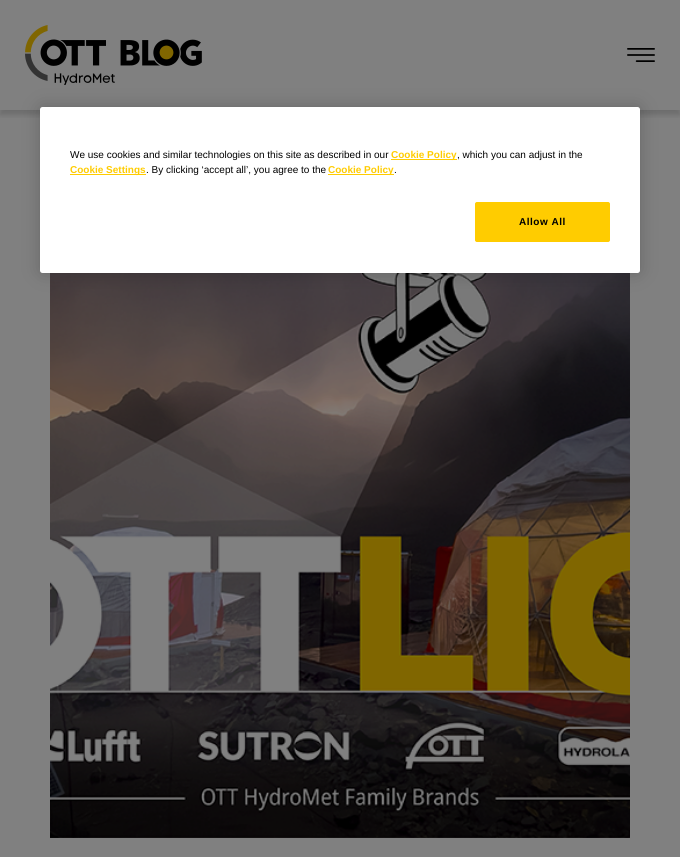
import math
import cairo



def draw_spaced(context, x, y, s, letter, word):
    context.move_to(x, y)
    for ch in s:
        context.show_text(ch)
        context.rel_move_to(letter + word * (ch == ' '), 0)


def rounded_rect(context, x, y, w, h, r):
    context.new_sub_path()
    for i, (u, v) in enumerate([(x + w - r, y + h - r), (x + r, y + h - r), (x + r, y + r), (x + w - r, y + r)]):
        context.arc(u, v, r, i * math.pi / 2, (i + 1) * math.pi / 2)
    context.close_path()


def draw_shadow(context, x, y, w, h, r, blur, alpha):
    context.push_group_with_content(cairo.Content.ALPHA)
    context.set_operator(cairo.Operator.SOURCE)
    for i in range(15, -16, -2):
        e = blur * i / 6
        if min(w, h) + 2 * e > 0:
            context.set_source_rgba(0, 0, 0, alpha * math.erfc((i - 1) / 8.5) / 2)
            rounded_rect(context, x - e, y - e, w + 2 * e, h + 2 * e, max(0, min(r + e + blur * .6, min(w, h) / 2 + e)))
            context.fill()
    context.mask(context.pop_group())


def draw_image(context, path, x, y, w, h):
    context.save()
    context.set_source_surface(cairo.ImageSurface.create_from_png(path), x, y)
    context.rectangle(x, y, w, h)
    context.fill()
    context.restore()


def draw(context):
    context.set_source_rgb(128 / 255, 128 / 255, 128 / 255)
    context.paint()
    context.save()
    context.rectangle(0, 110, 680, 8)
    context.clip()
    context.set_source_rgb(0, 0, 0)
    draw_shadow(context, 0, 5, 680, 110, 0, 2.5, 0.15)
    context.restore()
    draw_image(context, "images/1.png", 25, 25, 177, 60)
    draw_image(context, "images/2.png", 627, 48, 28, 14)
    draw_image(context, "images/3.png", 50, 273, 580, 565)
    context.set_source_rgb(0, 0, 0)
    draw_shadow(context, 40, 107, 600, 166, 2.5, 9, 0.2)
    context.set_source_rgb(1, 1, 1)
    rounded_rect(context, 40, 107, 600, 166, 2.5)
    context.fill()
    context.set_source_rgb(1, 204 / 255, 0)
    context.rectangle(391, 159, 66, 1)
    context.fill()
    context.rectangle(70, 174, 76, 1)
    context.fill()
    context.rectangle(328, 174, 66, 1)
    context.fill()
    rounded_rect(context, 475.5, 202.5, 134, 39, 1.5)
    context.fill_preserve()
    context.set_line_width(1)
    context.stroke()
    context.select_font_face("Liberation Sans")
    context.set_font_size(10)
    context.set_source_rgb(0, 0, 0)
    context.move_to(70, 158)
    context.show_text("We use cookies and similar technologies on this site as described in our")
    context.select_font_face("Liberation Sans", cairo.FontSlant.NORMAL, cairo.FontWeight.BOLD)
    context.set_source_rgb(1, 204 / 255, 0)
    context.move_to(391, 158)
    context.show_text("Cookie Policy")
    context.select_font_face("Liberation Sans")
    context.set_source_rgb(0, 0, 0)
    context.move_to(457, 158)
    context.show_text(", which you can adjust in the")
    context.select_font_face("Liberation Sans", cairo.FontSlant.NORMAL, cairo.FontWeight.BOLD)
    context.set_source_rgb(1, 204 / 255, 0)
    context.move_to(70, 173)
    context.show_text("Cookie Settings")
    context.select_font_face("Liberation Sans")
    context.set_source_rgb(0, 0, 0)
    context.move_to(146, 173)
    context.show_text(". By clicking ‘accept all’, you agree to the")
    context.select_font_face("Liberation Sans", cairo.FontSlant.NORMAL, cairo.FontWeight.BOLD)
    context.set_source_rgb(1, 204 / 255, 0)
    context.move_to(328, 173)
    context.show_text("Cookie Policy")
    context.select_font_face("Liberation Sans")
    context.set_source_rgb(0, 0, 0)
    context.move_to(394, 173)
    context.show_text(".")
    context.select_font_face("Liberation Sans", cairo.FontSlant.NORMAL, cairo.FontWeight.BOLD)
    draw_spaced(context, 519, 225, "Allow All", 0.5, 0)


surface = cairo.ImageSurface(cairo.Format.RGB24, 680, 857)
context = cairo.Context(surface)
options = cairo.FontOptions()
options.set_hint_metrics(cairo.HintMetrics.OFF)
options.set_hint_style(cairo.HintStyle.NONE)
context.set_font_options(options)
context.set_miter_limit(4)
draw(context)
surface.write_to_png("out.png")
